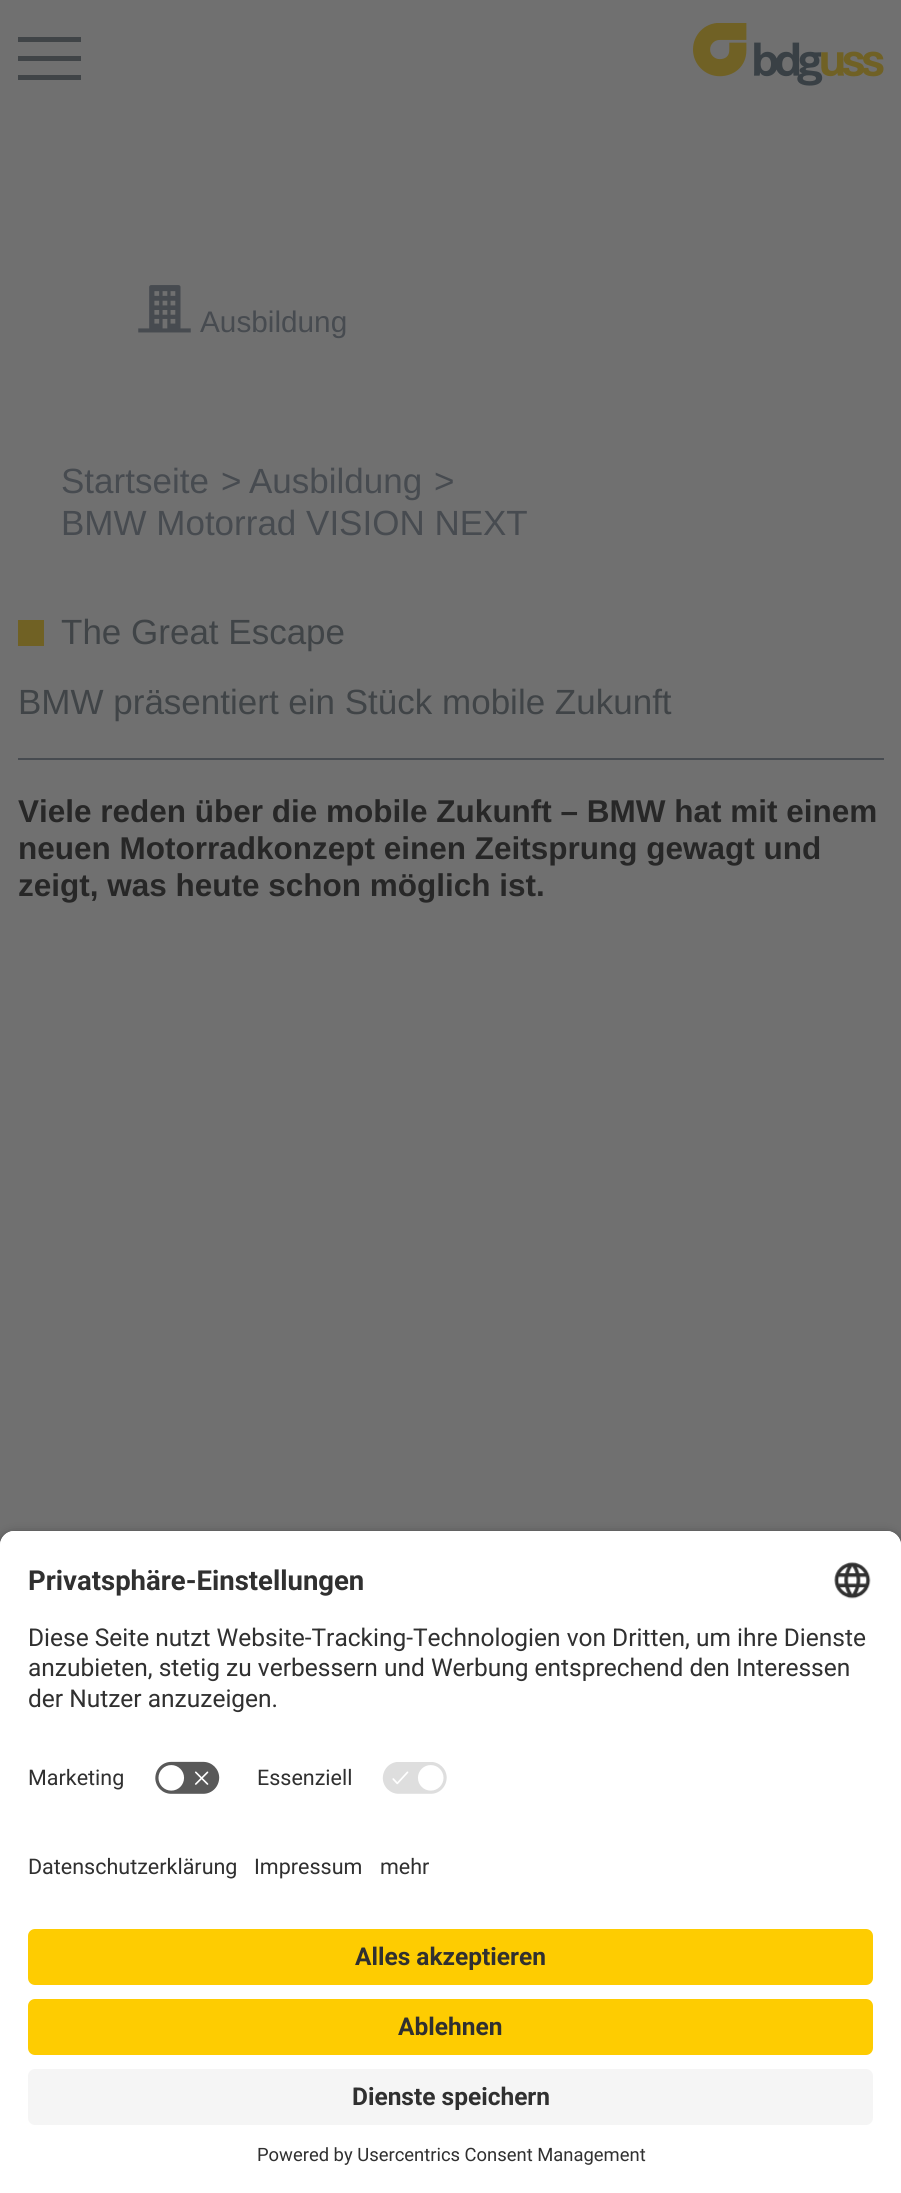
import math
import cairo



def rounded_rect(context, x, y, w, h, r):
    context.new_sub_path()
    for i, (u, v) in enumerate([(x + w - r, y + h - r), (x + r, y + h - r), (x + r, y + r), (x + w - r, y + r)]):
        context.arc(u, v, r, i * math.pi / 2, (i + 1) * math.pi / 2)
    context.close_path()


def draw_shadow(context, x, y, w, h, r, blur, alpha):
    context.push_group_with_content(cairo.Content.ALPHA)
    context.set_operator(cairo.Operator.SOURCE)
    for i in range(15, -16, -2):
        e = blur * i / 6
        if min(w, h) + 2 * e > 0:
            context.set_source_rgba(0, 0, 0, alpha * math.erfc((i - 1) / 8.5) / 2)
            rounded_rect(context, x - e, y - e, w + 2 * e, h + 2 * e, max(0, min(r + e + blur * .6, min(w, h) / 2 + e)))
            context.fill()
    context.mask(context.pop_group())


def draw_image(context, path, x, y, w, h):
    context.save()
    context.set_source_surface(cairo.ImageSurface.create_from_png(path), x, y)
    context.rectangle(x, y, w, h)
    context.fill()
    context.restore()


def draw(context):
    context.set_source_rgb(112 / 255, 112 / 255, 112 / 255)
    context.paint()
    context.set_source_rgb(64 / 255, 68 / 255, 71 / 255)
    context.rectangle(18, 75, 63, 5)
    context.fill()
    context.rectangle(18, 56, 63, 5)
    context.fill()
    context.rectangle(18, 37, 63, 5)
    context.fill()
    draw_image(context, "images/1.png", 693, 23, 191, 63)
    draw_image(context, "images/2.png", 138, 285, 53, 48)
    context.set_source_rgb(112 / 255, 97 / 255, 36 / 255)
    context.rectangle(18, 620, 26, 26)
    context.fill()
    context.set_source_rgb(71 / 255, 75 / 255, 80 / 255)
    context.rectangle(18, 758, 866, 2)
    context.fill()
    context.set_source_rgb(0, 0, 0)
    draw_shadow(context, 0, 1537, 901, 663, 14, 6, 0.8)
    context.set_source_rgb(1, 1, 1)
    context.new_path()
    context.move_to(14, 1531)
    context.line_to(887, 1531)
    context.curve_to(894.5, 1531, 901, 1537.5, 901, 1545)
    context.line_to(901, 1827)
    context.line_to(0, 1827)
    context.line_to(0, 1545)
    context.curve_to(0, 1537.5, 6.5, 1531, 14, 1531)
    context.close_path()
    context.fill()
    context.new_path()
    context.move_to(14, 1531)
    context.line_to(887, 1531)
    context.curve_to(894.5, 1531, 901, 1537.5, 901, 1545)
    context.line_to(901, 1750)
    context.line_to(0, 1750)
    context.line_to(0, 1545)
    context.curve_to(0, 1537.5, 6.5, 1531, 14, 1531)
    context.close_path()
    context.fill()
    draw_image(context, "images/3.png", 834, 1562, 37, 37)
    draw_image(context, "images/4.png", 155, 1761, 65, 33)
    draw_image(context, "images/5.png", 382, 1762, 65, 32)
    context.rectangle(0, 1827, 901, 366)
    context.fill()
    context.set_source_rgb(254 / 255, 204 / 255, 1 / 255)
    rounded_rect(context, 28, 1929, 845, 56, 7)
    context.fill()
    rounded_rect(context, 28, 1999, 845, 56, 7)
    context.fill()
    context.set_source_rgb(245 / 255, 245 / 255, 245 / 255)
    rounded_rect(context, 28, 2069, 845, 56, 7)
    context.fill()
    context.select_font_face("Liberation Sans")
    context.set_font_size(29.75)
    context.set_source_rgb(71 / 255, 75 / 255, 80 / 255)
    context.move_to(200, 332)
    context.show_text("Ausbildung")
    context.set_font_size(35)
    context.move_to(61, 493)
    context.show_text("Startseite")
    context.move_to(221, 493)
    context.show_text(">")
    context.move_to(249, 493)
    context.show_text("Ausbildung")
    context.move_to(434, 493)
    context.show_text(">")
    context.move_to(61, 535)
    context.show_text("BMW Motorrad VISION NEXT")
    context.set_source_rgb(64 / 255, 68 / 255, 71 / 255)
    context.move_to(61, 644)
    context.show_text("The Great Escape")
    context.move_to(18, 714)
    context.show_text("BMW präsentiert ein Stück mobile Zukunft")
    context.select_font_face("Liberation Sans", cairo.FontSlant.NORMAL, cairo.FontWeight.BOLD)
    context.set_font_size(31.5)
    context.set_source_rgb(39 / 255, 39 / 255, 39 / 255)
    context.move_to(18, 822)
    context.show_text("Viele reden über die mobile Zukunft – BMW hat mit einem")
    context.move_to(18, 859)
    context.show_text("neuen Motorradkonzept einen Zeitsprung gewagt und")
    context.move_to(18, 896)
    context.show_text("zeigt, was heute schon möglich ist.")
    context.select_font_face("Roboto", cairo.FontSlant.NORMAL, cairo.FontWeight.BOLD)
    context.set_font_size(27.5)
    context.set_source_rgb(48 / 255, 48 / 255, 48 / 255)
    context.move_to(28, 1590)
    context.show_text("Privatsphäre-Einstellungen")
    context.select_font_face("Roboto")
    context.set_font_size(24.5)
    context.move_to(28, 1646)
    context.show_text("Diese Seite nutzt Website-Tracking-Technologien von Dritten, um ihre Dienste")
    context.move_to(28, 1676)
    context.show_text("anzubieten, stetig zu verbessern und Werbung entsprechend den Interessen")
    context.move_to(28, 1707)
    context.show_text("der Nutzer anzuzeigen.")
    context.set_font_size(21.5)
    context.move_to(28, 1785)
    context.show_text("Marketing")
    context.move_to(257, 1785)
    context.show_text("Essenziell")
    context.move_to(28, 1874)
    context.show_text("Datenschutzerklärung")
    context.move_to(254, 1874)
    context.show_text("Impressum")
    context.move_to(380, 1874)
    context.show_text("mehr")
    context.select_font_face("Roboto", cairo.FontSlant.NORMAL, cairo.FontWeight.BOLD)
    context.set_font_size(24.5)
    context.move_to(355, 1965)
    context.show_text("Alles akzeptieren")
    context.move_to(398, 2035)
    context.show_text("Ablehnen")
    context.move_to(352, 2105)
    context.show_text("Dienste speichern")
    context.select_font_face("Roboto")
    context.set_font_size(18.4)
    context.move_to(257, 2161)
    context.show_text("Powered by Usercentrics Consent Management")


surface = cairo.ImageSurface(cairo.Format.RGB24, 901, 2193)
context = cairo.Context(surface)
options = cairo.FontOptions()
options.set_hint_metrics(cairo.HintMetrics.OFF)
options.set_hint_style(cairo.HintStyle.NONE)
context.set_font_options(options)
context.set_miter_limit(4)
draw(context)
surface.write_to_png("out.png")
